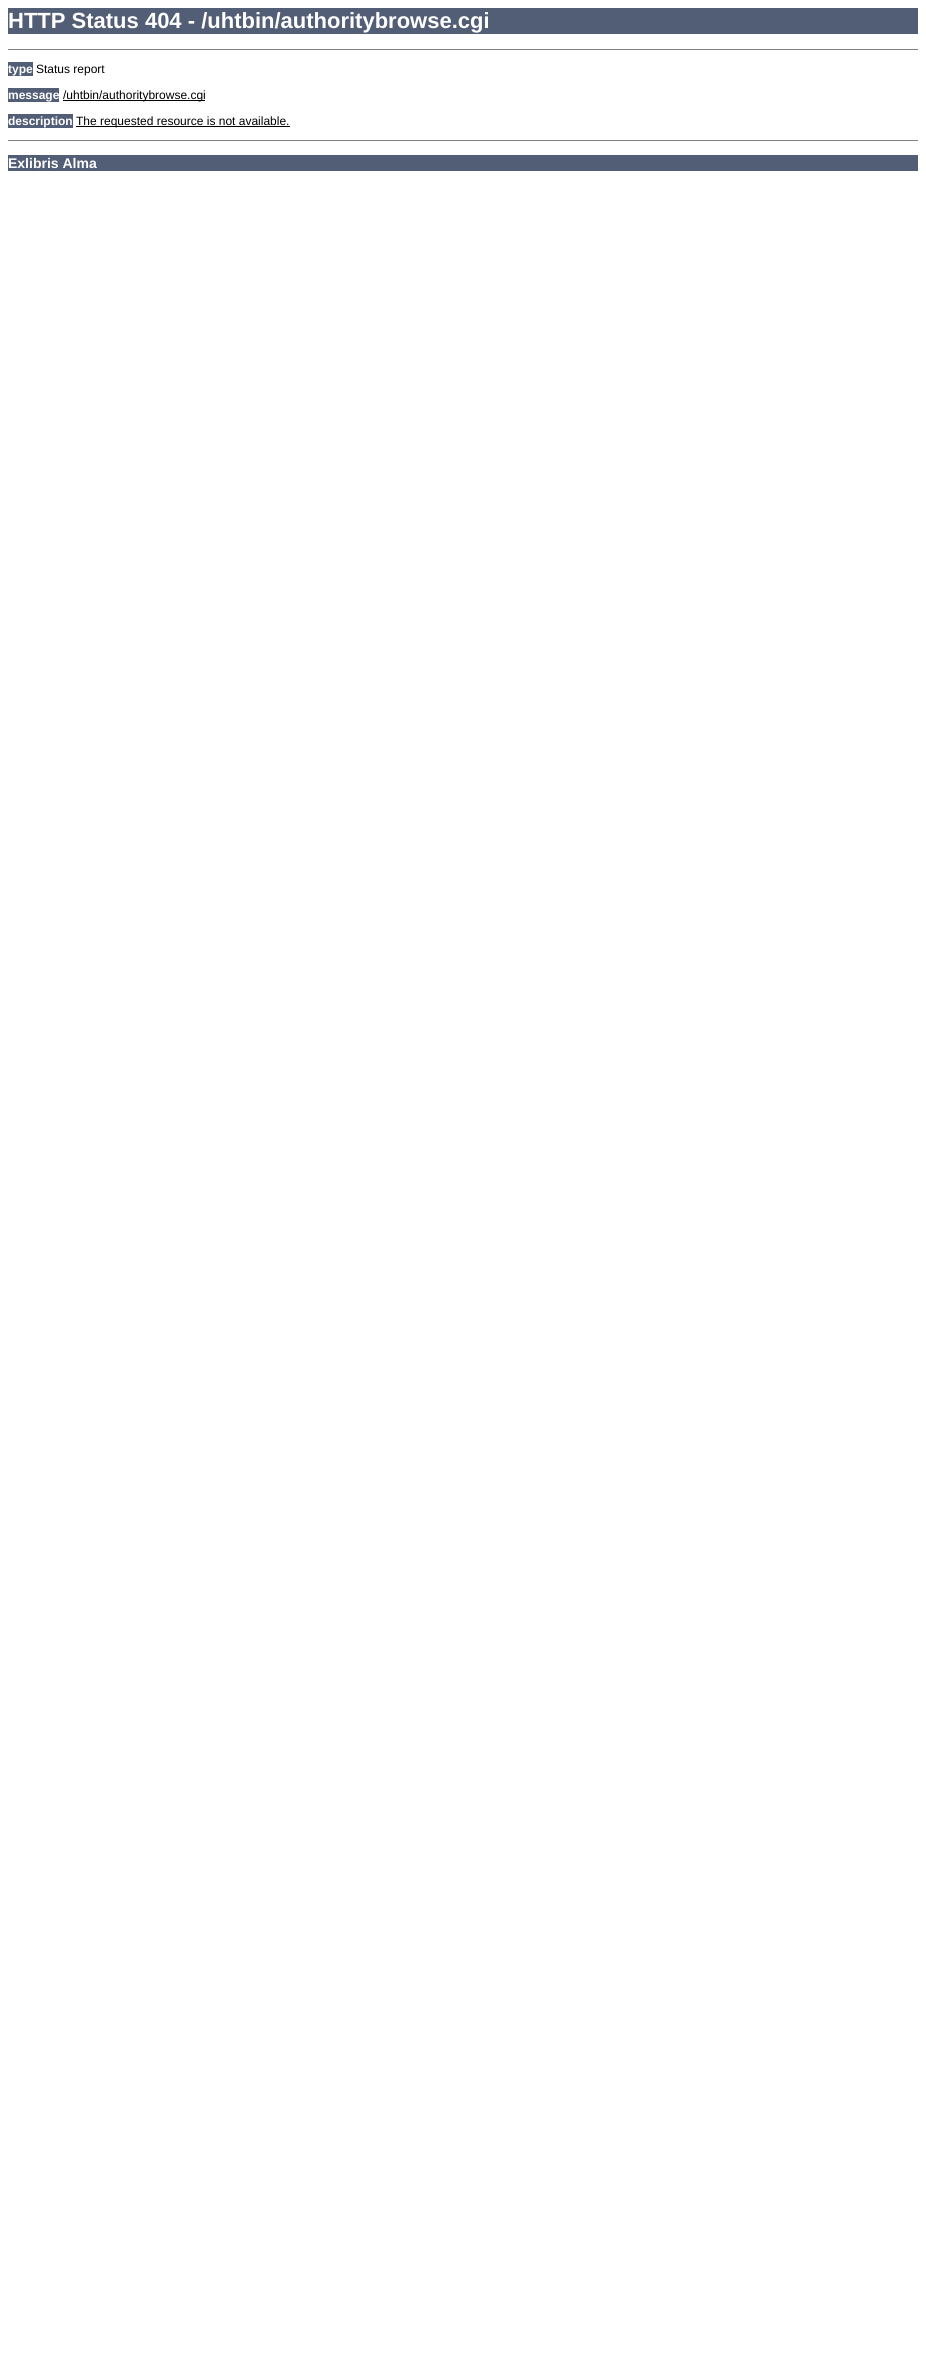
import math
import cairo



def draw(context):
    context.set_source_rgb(1, 1, 1)
    context.paint()
    context.set_source_rgb(82 / 255, 93 / 255, 118 / 255)
    context.rectangle(8, 8, 910, 26)
    context.fill()
    context.set_source_rgb(128 / 255, 128 / 255, 128 / 255)
    context.rectangle(8, 49, 910, 1)
    context.fill()
    context.set_source_rgb(82 / 255, 93 / 255, 118 / 255)
    context.rectangle(8, 62, 25, 14)
    context.fill()
    context.rectangle(8, 88, 51, 14)
    context.fill()
    context.set_source_rgb(0, 0, 0)
    context.rectangle(63, 100, 142, 1)
    context.fill()
    context.set_source_rgb(82 / 255, 93 / 255, 118 / 255)
    context.rectangle(8, 114, 65, 14)
    context.fill()
    context.set_source_rgb(0, 0, 0)
    context.rectangle(76, 126, 214, 1)
    context.fill()
    context.set_source_rgb(128 / 255, 128 / 255, 128 / 255)
    context.rectangle(8, 140, 910, 1)
    context.fill()
    context.set_source_rgb(82 / 255, 93 / 255, 118 / 255)
    context.rectangle(8, 155, 910, 16)
    context.fill()
    context.select_font_face("Liberation Sans", cairo.FontSlant.NORMAL, cairo.FontWeight.BOLD)
    context.set_font_size(22)
    context.set_source_rgb(1, 1, 1)
    context.move_to(8, 28)
    context.show_text("HTTP Status 404 - /uhtbin/authoritybrowse.cgi")
    context.set_font_size(12)
    context.move_to(8, 73)
    context.show_text("type")
    context.select_font_face("Liberation Sans")
    context.set_source_rgb(0, 0, 0)
    context.move_to(36, 73)
    context.show_text("Status report")
    context.select_font_face("Liberation Sans", cairo.FontSlant.NORMAL, cairo.FontWeight.BOLD)
    context.set_source_rgb(1, 1, 1)
    context.move_to(8, 99)
    context.show_text("message")
    context.select_font_face("Liberation Sans")
    context.set_source_rgb(0, 0, 0)
    context.move_to(63, 99)
    context.show_text("/uhtbin/authoritybrowse.cgi")
    context.select_font_face("Liberation Sans", cairo.FontSlant.NORMAL, cairo.FontWeight.BOLD)
    context.set_source_rgb(1, 1, 1)
    context.move_to(8, 125)
    context.show_text("description")
    context.select_font_face("Liberation Sans")
    context.set_source_rgb(0, 0, 0)
    context.move_to(76, 125)
    context.show_text("The requested resource is not available.")
    context.select_font_face("Liberation Sans", cairo.FontSlant.NORMAL, cairo.FontWeight.BOLD)
    context.set_font_size(14)
    context.set_source_rgb(1, 1, 1)
    context.move_to(8, 168)
    context.show_text("Exlibris Alma")


surface = cairo.ImageSurface(cairo.Format.RGB24, 926, 2376)
context = cairo.Context(surface)
options = cairo.FontOptions()
options.set_hint_metrics(cairo.HintMetrics.OFF)
options.set_hint_style(cairo.HintStyle.NONE)
context.set_font_options(options)
context.set_miter_limit(4)
draw(context)
surface.write_to_png("out.png")
